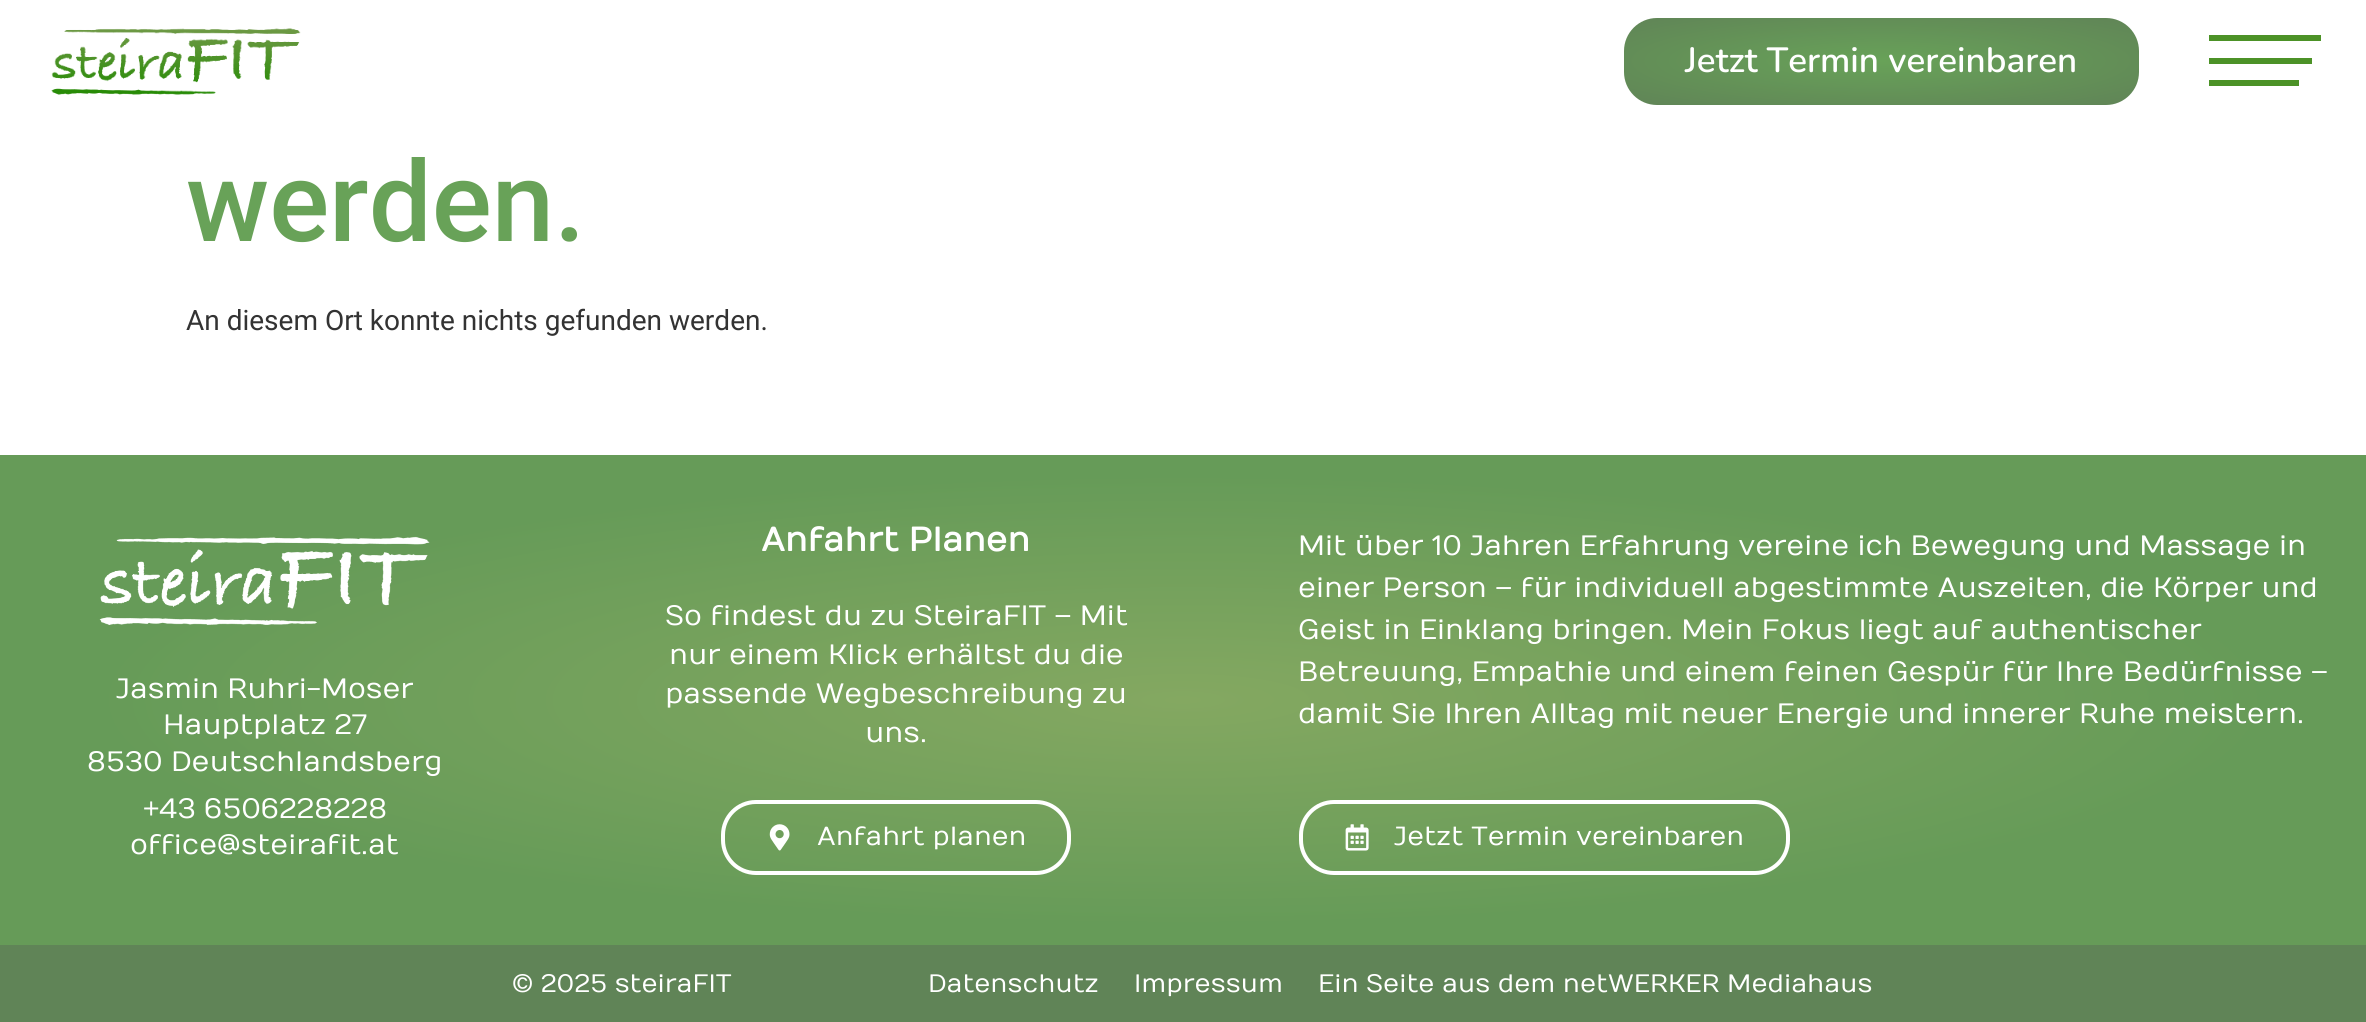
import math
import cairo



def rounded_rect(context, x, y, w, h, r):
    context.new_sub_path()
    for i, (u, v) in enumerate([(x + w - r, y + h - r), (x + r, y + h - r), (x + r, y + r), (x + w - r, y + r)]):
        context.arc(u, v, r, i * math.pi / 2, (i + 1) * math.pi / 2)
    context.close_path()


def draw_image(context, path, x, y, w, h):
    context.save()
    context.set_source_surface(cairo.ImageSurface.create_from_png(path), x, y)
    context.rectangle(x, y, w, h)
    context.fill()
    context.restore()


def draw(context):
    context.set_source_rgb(1, 1, 1)
    context.paint()
    draw_image(context, "images/1.png", 51, 28, 250, 67)
    gradient = cairo.RadialGradient(0, 0, 0, 0, 0, 1)
    gradient.set_matrix(cairo.Matrix(1 / 364, 0, 0, 1 / 62, -1 * 1881 / 364, -1 * 61 / 62))
    gradient.add_color_stop_rgba(0, 104 / 255, 162 / 255, 88 / 255, 1)
    gradient.add_color_stop_rgba(1, 96 / 255, 132 / 255, 87 / 255, 1)
    context.set_source(gradient)
    rounded_rect(context, 1624, 18, 515, 87, 33)
    context.fill()
    context.set_source_rgb(76 / 255, 146 / 255, 39 / 255)
    context.new_path()
    context.move_to(2321, 35)
    context.line_to(2209, 35)
    context.line_to(2209, 41)
    context.line_to(2321, 41)
    context.close_path()
    context.move_to(2312, 58)
    context.line_to(2209, 58)
    context.line_to(2209, 64)
    context.line_to(2312, 64)
    context.close_path()
    context.move_to(2299, 80)
    context.line_to(2209, 80)
    context.line_to(2209, 86)
    context.line_to(2299, 86)
    context.close_path()
    context.fill()
    gradient = cairo.RadialGradient(0, 0, 0, 0, 0, 1)
    gradient.set_matrix(cairo.Matrix(1 / 1673, 0, 0, 1 / 346, -1 * 1183 / 1673, -1 * 700 / 346))
    gradient.add_color_stop_rgba(0, 132 / 255, 168 / 255, 97 / 255, 1)
    gradient.add_color_stop_rgba(0.65, 102 / 255, 155 / 255, 88 / 255, 1)
    context.set_source(gradient)
    context.rectangle(0, 455, 2366, 490)
    context.fill()
    draw_image(context, "images/2.png", 99, 536, 331, 89)
    rounded_rect(context, 723, 802, 346, 71, 33)
    context.set_source_rgb(1, 1, 1)
    context.set_line_width(4)
    context.stroke()
    draw_image(context, "images/3.png", 769, 824, 21, 27)
    rounded_rect(context, 1301, 802, 487, 71, 33)
    context.stroke()
    draw_image(context, "images/4.png", 1345, 824, 24, 27)
    context.set_source_rgb(96 / 255, 132 / 255, 87 / 255)
    context.rectangle(0, 945, 2366, 77)
    context.fill()
    context.select_font_face("Nunito SemiBold")
    context.set_font_size(35)
    context.set_source_rgb(1, 1, 1)
    context.move_to(1685, 72)
    context.show_text("Jetzt Termin vereinbaren")
    context.select_font_face("Roboto Medium")
    context.set_font_size(112)
    context.set_source_rgb(104 / 255, 162 / 255, 88 / 255)
    context.move_to(186, 241)
    context.show_text("werden.")
    context.select_font_face("Roboto")
    context.set_font_size(28)
    context.set_source_rgb(51 / 255, 51 / 255, 51 / 255)
    context.move_to(186, 330)
    context.show_text("An diesem Ort konnte nichts gefunden werden.")
    context.select_font_face("Numans")
    context.set_source_rgb(1, 1, 1)
    context.move_to(116, 698)
    context.show_text("Jasmin Ruhri-Moser")
    context.move_to(163, 734)
    context.show_text("Hauptplatz 27")
    context.move_to(87, 771)
    context.show_text("8530 Deutschlandsberg")
    context.move_to(143, 818)
    context.show_text("+43 6506228228")
    context.move_to(130, 854)
    context.show_text("office@steirafit.at")
    context.select_font_face("Numans", cairo.FontSlant.NORMAL, cairo.FontWeight.BOLD)
    context.set_font_size(33.5)
    context.move_to(761, 551)
    context.show_text("Anfahrt Planen")
    context.select_font_face("Numans")
    context.set_font_size(28)
    context.move_to(665, 625)
    context.show_text("So findest du zu SteiraFIT – Mit")
    context.move_to(669, 664)
    context.show_text("nur einem Klick erhältst du die")
    context.move_to(665, 703)
    context.show_text("passende Wegbeschreibung zu")
    context.move_to(865, 742)
    context.show_text("uns.")
    context.set_font_size(26.25)
    context.move_to(817, 845)
    context.show_text("Anfahrt planen")
    context.set_font_size(28)
    context.move_to(1298, 555)
    context.show_text("Mit über 10 Jahren Erfahrung vereine ich Bewegung und Massage in")
    context.move_to(1298, 597)
    context.show_text("einer Person – für individuell abgestimmte Auszeiten, die Körper und")
    context.move_to(1298, 639)
    context.show_text("Geist in Einklang bringen. Mein Fokus liegt auf authentischer")
    context.move_to(1298, 681)
    context.show_text("Betreuung, Empathie und einem feinen Gespür für Ihre Bedürfnisse –")
    context.move_to(1298, 723)
    context.show_text("damit Sie Ihren Alltag mit neuer Energie und innerer Ruhe meistern.")
    context.set_font_size(26.25)
    context.move_to(1394, 845)
    context.show_text("Jetzt Termin vereinbaren")
    context.set_font_size(25.2)
    context.move_to(512, 992)
    context.show_text("© 2025 steiraFIT")
    context.move_to(928, 992)
    context.show_text("Datenschutz")
    context.move_to(1134, 992)
    context.show_text("Impressum")
    context.move_to(1318, 992)
    context.show_text("Ein Seite aus dem netWERKER Mediahaus")


surface = cairo.ImageSurface(cairo.Format.RGB24, 2366, 1022)
context = cairo.Context(surface)
options = cairo.FontOptions()
options.set_hint_metrics(cairo.HintMetrics.OFF)
options.set_hint_style(cairo.HintStyle.NONE)
context.set_font_options(options)
context.set_miter_limit(4)
draw(context)
surface.write_to_png("out.png")
